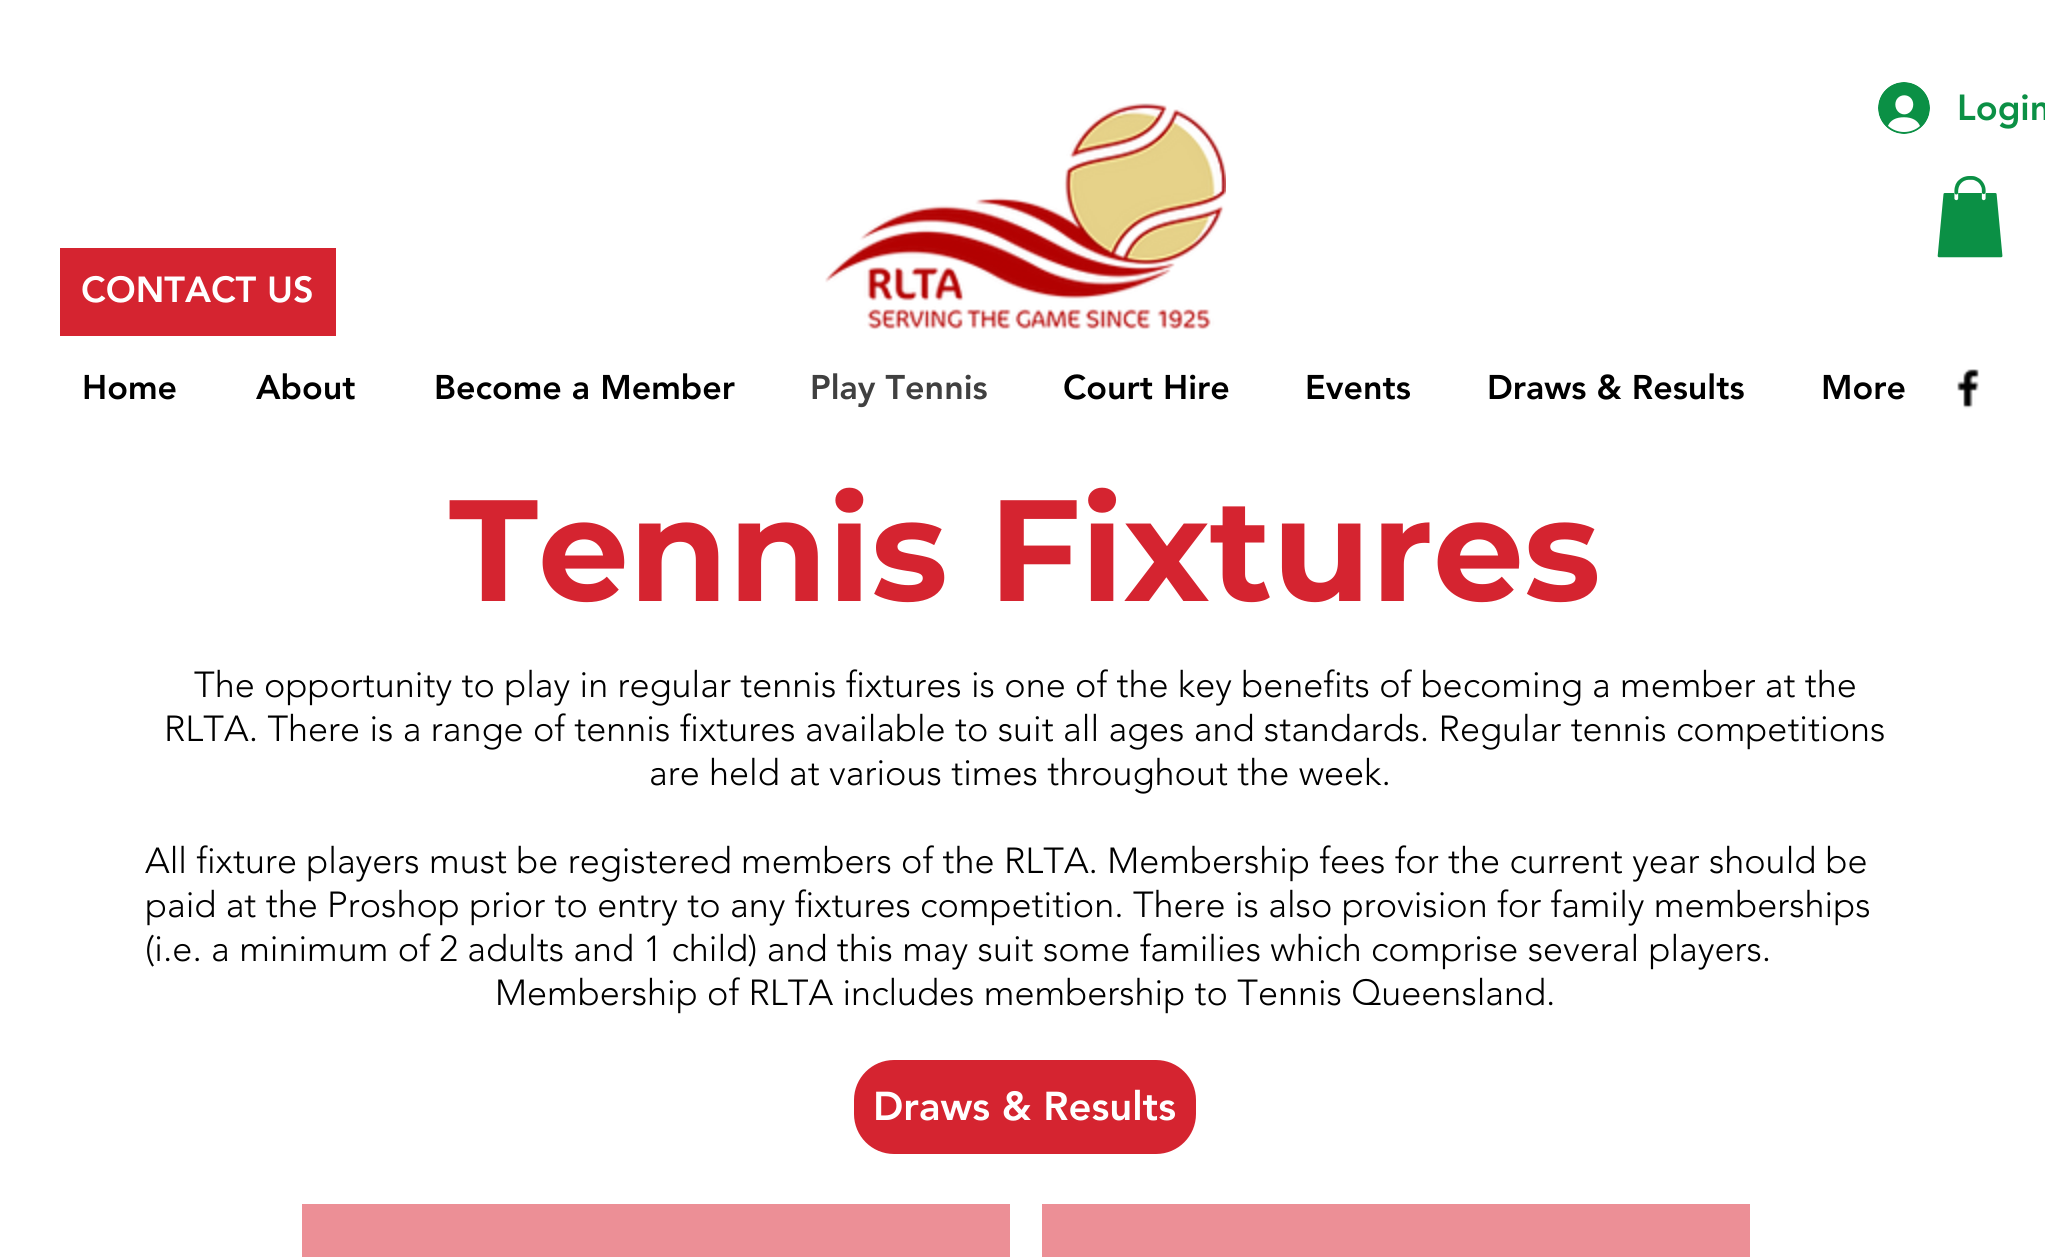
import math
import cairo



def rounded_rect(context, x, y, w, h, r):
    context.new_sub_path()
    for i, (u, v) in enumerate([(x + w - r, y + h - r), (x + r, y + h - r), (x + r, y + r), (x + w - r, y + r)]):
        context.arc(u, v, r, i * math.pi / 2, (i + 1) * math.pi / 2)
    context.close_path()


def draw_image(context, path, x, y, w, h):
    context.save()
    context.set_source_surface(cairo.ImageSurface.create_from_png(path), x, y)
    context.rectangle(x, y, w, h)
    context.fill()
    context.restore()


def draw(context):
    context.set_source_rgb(1, 1, 1)
    context.paint()
    draw_image(context, "images/1.png", 825, 103, 401, 227)
    draw_image(context, "images/2.png", 1878, 82, 52, 52)
    draw_image(context, "images/3.png", 1937, 176, 66, 82)
    context.set_source_rgb(213 / 255, 36 / 255, 48 / 255)
    context.rectangle(60, 248, 276, 88)
    context.fill()
    draw_image(context, "images/4.png", 1957, 369, 22, 40)
    rounded_rect(context, 856, 1062, 338, 90, 38)
    context.fill_preserve()
    context.set_line_width(4)
    context.stroke()
    context.set_source_rgb(236 / 255, 143 / 255, 150 / 255)
    context.rectangle(302, 1204, 708, 53)
    context.fill()
    context.rectangle(1042, 1204, 708, 53)
    context.fill()
    context.select_font_face("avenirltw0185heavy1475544 Black")
    context.set_font_size(36)
    context.set_source_rgb(11 / 255, 144 / 255, 69 / 255)
    context.move_to(1957, 120)
    context.show_text("Login")
    context.set_source_rgb(1, 1, 1)
    context.move_to(81, 302)
    context.show_text("CONTACT US")
    context.set_font_size(34)
    context.set_source_rgb(0, 0, 0)
    context.move_to(82, 399)
    context.show_text("Home")
    context.move_to(256, 399)
    context.show_text("About")
    context.move_to(434, 399)
    context.show_text("Become a Member")
    context.set_source_rgb(64 / 255, 64 / 255, 64 / 255)
    context.move_to(810, 399)
    context.show_text("Play Tennis")
    context.set_source_rgb(0, 0, 0)
    context.move_to(1063, 399)
    context.show_text("Court Hire")
    context.move_to(1305, 399)
    context.show_text("Events")
    context.move_to(1487, 399)
    context.show_text("Draws & Results")
    context.move_to(1821, 399)
    context.show_text("More")
    context.select_font_face("Montserrat", cairo.FontSlant.NORMAL, cairo.FontWeight.BOLD)
    context.set_font_size(144)
    context.set_source_rgb(213 / 255, 36 / 255, 48 / 255)
    context.move_to(449, 601)
    context.show_text("Tennis Fixtures")
    context.select_font_face("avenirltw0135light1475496 Light")
    context.set_font_size(36)
    context.set_source_rgb(0, 0, 0)
    context.move_to(194, 697)
    context.show_text("The opportunity to play in regular tennis fixtures is one of the key benefits of becoming a member at the")
    context.move_to(164, 741)
    context.show_text("RLTA. There is a range of tennis fixtures available to suit all ages and standards. Regular tennis competitions")
    context.move_to(649, 785)
    context.show_text("are held at various times throughout the week.")
    context.move_to(145, 873)
    context.show_text("All fixture players must be registered members of the RLTA. Membership fees for the current year should be")
    context.move_to(145, 917)
    context.show_text("paid at the Proshop prior to entry to any fixtures competition. There is also provision for family memberships")
    context.move_to(145, 961)
    context.show_text("(i.e. a minimum of 2 adults and 1 child) and this may suit some families which comprise several players.")
    context.move_to(495, 1005)
    context.show_text("Membership of RLTA includes membership to Tennis Queensland.")
    context.select_font_face("avenirltw0185heavy1475544 Black")
    context.set_font_size(40)
    context.set_source_rgb(1, 1, 1)
    context.move_to(873, 1120)
    context.show_text("Draws & Results")


surface = cairo.ImageSurface(cairo.Format.RGB24, 2045, 1257)
context = cairo.Context(surface)
options = cairo.FontOptions()
options.set_hint_metrics(cairo.HintMetrics.OFF)
options.set_hint_style(cairo.HintStyle.NONE)
context.set_font_options(options)
context.set_miter_limit(4)
draw(context)
surface.write_to_png("out.png")
